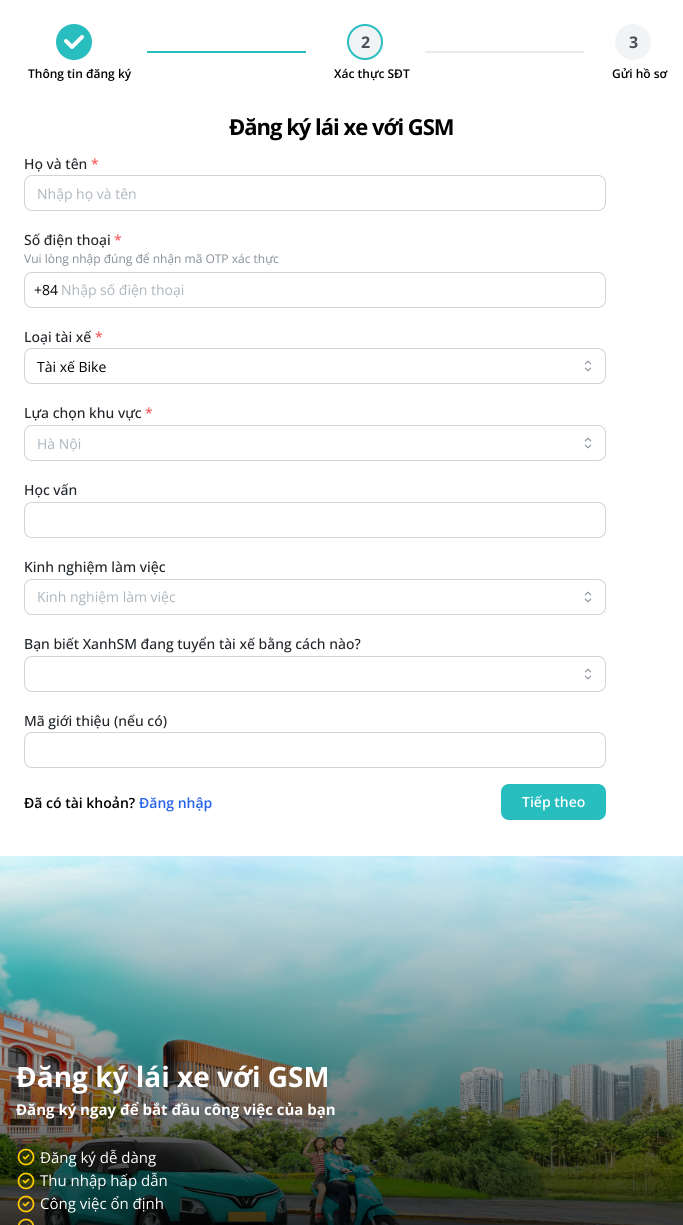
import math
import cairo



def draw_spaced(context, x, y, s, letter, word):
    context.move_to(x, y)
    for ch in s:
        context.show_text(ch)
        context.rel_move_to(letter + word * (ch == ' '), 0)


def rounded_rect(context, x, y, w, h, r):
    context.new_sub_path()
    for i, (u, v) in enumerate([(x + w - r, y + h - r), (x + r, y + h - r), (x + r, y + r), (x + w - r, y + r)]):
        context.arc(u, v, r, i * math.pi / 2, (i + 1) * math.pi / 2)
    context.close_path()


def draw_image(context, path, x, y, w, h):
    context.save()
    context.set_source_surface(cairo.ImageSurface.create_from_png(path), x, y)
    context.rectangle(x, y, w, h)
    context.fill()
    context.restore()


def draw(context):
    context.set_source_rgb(1, 1, 1)
    context.paint()
    context.set_source_rgb(40 / 255, 189 / 255, 191 / 255)
    context.rectangle(147, 51, 159, 2)
    context.fill()
    context.set_source_rgb(241 / 255, 243 / 255, 245 / 255)
    context.arc(365, 42, 17, 0, 2 * math.pi)
    context.fill_preserve()
    context.set_source_rgb(40 / 255, 189 / 255, 191 / 255)
    context.stroke()
    context.set_source_rgb(233 / 255, 236 / 255, 239 / 255)
    context.rectangle(425, 51, 159, 2)
    context.fill()
    context.set_source_rgb(241 / 255, 243 / 255, 245 / 255)
    context.arc(633, 42, 17, 0, 2 * math.pi)
    context.fill_preserve()
    context.stroke()
    context.set_source_rgb(40 / 255, 189 / 255, 191 / 255)
    context.arc(74, 42, 17, 0, 2 * math.pi)
    context.fill_preserve()
    context.stroke()
    draw_image(context, "images/1.png", 64, 35, 20, 14)
    rounded_rect(context, 24.5, 175.5, 581, 35, 7.5)
    context.set_source_rgb(206 / 255, 212 / 255, 218 / 255)
    context.set_line_width(1)
    context.stroke()
    rounded_rect(context, 24.5, 272.5, 581, 35, 7.5)
    context.stroke()
    rounded_rect(context, 24.5, 348.5, 581, 35, 7.5)
    context.stroke()
    draw_image(context, "images/2.png", 584, 360, 8, 12)
    rounded_rect(context, 24.5, 425.5, 581, 35, 7.5)
    context.stroke()
    draw_image(context, "images/2.png", 584, 437, 8, 12)
    rounded_rect(context, 24.5, 502.5, 581, 35, 7.5)
    context.stroke()
    rounded_rect(context, 24.5, 579.5, 581, 35, 7.5)
    context.stroke()
    draw_image(context, "images/2.png", 584, 591, 8, 12)
    rounded_rect(context, 24.5, 656.5, 581, 35, 7.5)
    context.stroke()
    draw_image(context, "images/2.png", 584, 668, 8, 12)
    rounded_rect(context, 24.5, 732.5, 581, 35, 7.5)
    context.stroke()
    context.set_source_rgb(40 / 255, 189 / 255, 191 / 255)
    rounded_rect(context, 501, 784, 105, 36, 8)
    context.fill()
    draw_image(context, "images/3.png", 0, 856, 683, 369)
    draw_image(context, "images/4.png", 17, 1148, 18, 18)
    draw_image(context, "images/5.png", 17, 1172, 18, 18)
    draw_image(context, "images/6.png", 17, 1195, 18, 18)
    draw_image(context, "images/7.png", 18, 1218, 16, 7)
    context.select_font_face("Open Sans", cairo.FontSlant.NORMAL, cairo.FontWeight.BOLD)
    context.set_font_size(16)
    context.set_source_rgb(73 / 255, 80 / 255, 87 / 255)
    context.move_to(361, 48)
    context.show_text("2")
    context.select_font_face("Open Sans SemiBold")
    context.set_font_size(12)
    context.set_source_rgb(0, 0, 0)
    context.move_to(334, 78)
    context.show_text("Xác thực SĐT")
    context.select_font_face("Open Sans", cairo.FontSlant.NORMAL, cairo.FontWeight.BOLD)
    context.set_font_size(16)
    context.set_source_rgb(73 / 255, 80 / 255, 87 / 255)
    context.move_to(629, 48)
    context.show_text("3")
    context.select_font_face("Open Sans SemiBold")
    context.set_font_size(12)
    context.set_source_rgb(0, 0, 0)
    context.move_to(612, 78)
    context.show_text("Gửi hồ sơ")
    context.move_to(28, 78)
    context.show_text("Thông tin đăng ký")
    context.select_font_face("Open Sans", cairo.FontSlant.NORMAL, cairo.FontWeight.BOLD)
    context.set_font_size(22)
    draw_spaced(context, 229, 135, "Đăng ký lái xe với GSM", -1, 0)
    context.select_font_face("Open Sans Medium")
    context.set_font_size(14)
    context.set_source_rgb(33 / 255, 37 / 255, 41 / 255)
    context.move_to(24, 169)
    context.show_text("Họ và tên")
    context.set_source_rgb(250 / 255, 82 / 255, 82 / 255)
    context.move_to(91, 169)
    context.show_text("*")
    context.select_font_face("Open Sans")
    context.set_source_rgb(173 / 255, 181 / 255, 189 / 255)
    context.move_to(37, 199)
    context.show_text("Nhập họ và tên")
    context.select_font_face("Open Sans Medium")
    context.set_source_rgb(33 / 255, 37 / 255, 41 / 255)
    context.move_to(24, 245)
    context.show_text("Số điện thoại")
    context.set_source_rgb(250 / 255, 82 / 255, 82 / 255)
    context.move_to(114, 245)
    context.show_text("*")
    context.select_font_face("Open Sans")
    context.set_font_size(12)
    context.set_source_rgb(134 / 255, 142 / 255, 150 / 255)
    context.move_to(24, 263)
    context.show_text("Vui lòng nhập đúng để nhận mã OTP xác thực")
    context.set_font_size(14)
    context.set_source_rgb(0, 0, 0)
    context.move_to(34, 295)
    context.show_text("+84")
    context.set_source_rgb(173 / 255, 181 / 255, 189 / 255)
    context.move_to(61, 295)
    context.show_text("Nhập số điện thoại")
    context.select_font_face("Open Sans Medium")
    context.set_source_rgb(33 / 255, 37 / 255, 41 / 255)
    context.move_to(24, 342)
    context.show_text("Loại tài xế")
    context.set_source_rgb(250 / 255, 82 / 255, 82 / 255)
    context.move_to(95, 342)
    context.show_text("*")
    context.select_font_face("Open Sans")
    context.set_source_rgb(0, 0, 0)
    context.move_to(37, 372)
    context.show_text("Tài xế Bike")
    context.select_font_face("Open Sans Medium")
    context.set_source_rgb(33 / 255, 37 / 255, 41 / 255)
    context.move_to(24, 418)
    context.show_text("Lựa chọn khu vực")
    context.set_source_rgb(250 / 255, 82 / 255, 82 / 255)
    context.move_to(145, 418)
    context.show_text("*")
    context.select_font_face("Open Sans")
    context.set_source_rgb(173 / 255, 181 / 255, 189 / 255)
    context.move_to(37, 449)
    context.show_text("Hà Nội")
    context.select_font_face("Open Sans Medium")
    context.set_source_rgb(33 / 255, 37 / 255, 41 / 255)
    context.move_to(24, 495)
    context.show_text("Học vấn")
    context.move_to(24, 572)
    context.show_text("Kinh nghiệm làm việc")
    context.select_font_face("Open Sans")
    context.set_source_rgb(173 / 255, 181 / 255, 189 / 255)
    context.move_to(37, 602)
    context.show_text("Kinh nghiệm làm việc")
    context.select_font_face("Open Sans Medium")
    context.set_source_rgb(33 / 255, 37 / 255, 41 / 255)
    context.move_to(24, 649)
    context.show_text("Bạn biết XanhSM đang tuyển tài xế bằng cách nào?")
    context.move_to(24, 726)
    context.show_text("Mã giới thiệu (nếu có)")
    context.select_font_face("Open Sans SemiBold")
    context.set_source_rgb(0, 0, 0)
    context.move_to(24, 808)
    context.show_text("Đã có tài khoản?")
    context.set_source_rgb(37 / 255, 99 / 255, 235 / 255)
    context.move_to(139, 808)
    context.show_text("Đăng nhập")
    context.set_source_rgb(1, 1, 1)
    context.move_to(522, 807)
    context.show_text("Tiếp theo")
    context.select_font_face("Open Sans", cairo.FontSlant.NORMAL, cairo.FontWeight.BOLD)
    context.set_font_size(28)
    context.move_to(16, 1087)
    context.show_text("Đăng ký lái xe với GSM")
    context.set_font_size(15)
    context.move_to(16, 1115)
    context.show_text("Đăng ký ngay để bắt đầu công việc của bạn")
    context.select_font_face("Open Sans")
    context.move_to(40, 1163)
    context.show_text("Đăng ký dễ dàng")
    context.move_to(40, 1186)
    context.show_text("Thu nhập hấp dẫn")
    context.move_to(40, 1209)
    context.show_text("Công việc ổn định")


surface = cairo.ImageSurface(cairo.Format.RGB24, 683, 1225)
context = cairo.Context(surface)
options = cairo.FontOptions()
options.set_hint_metrics(cairo.HintMetrics.OFF)
options.set_hint_style(cairo.HintStyle.NONE)
context.set_font_options(options)
context.set_miter_limit(4)
draw(context)
surface.write_to_png("out.png")
